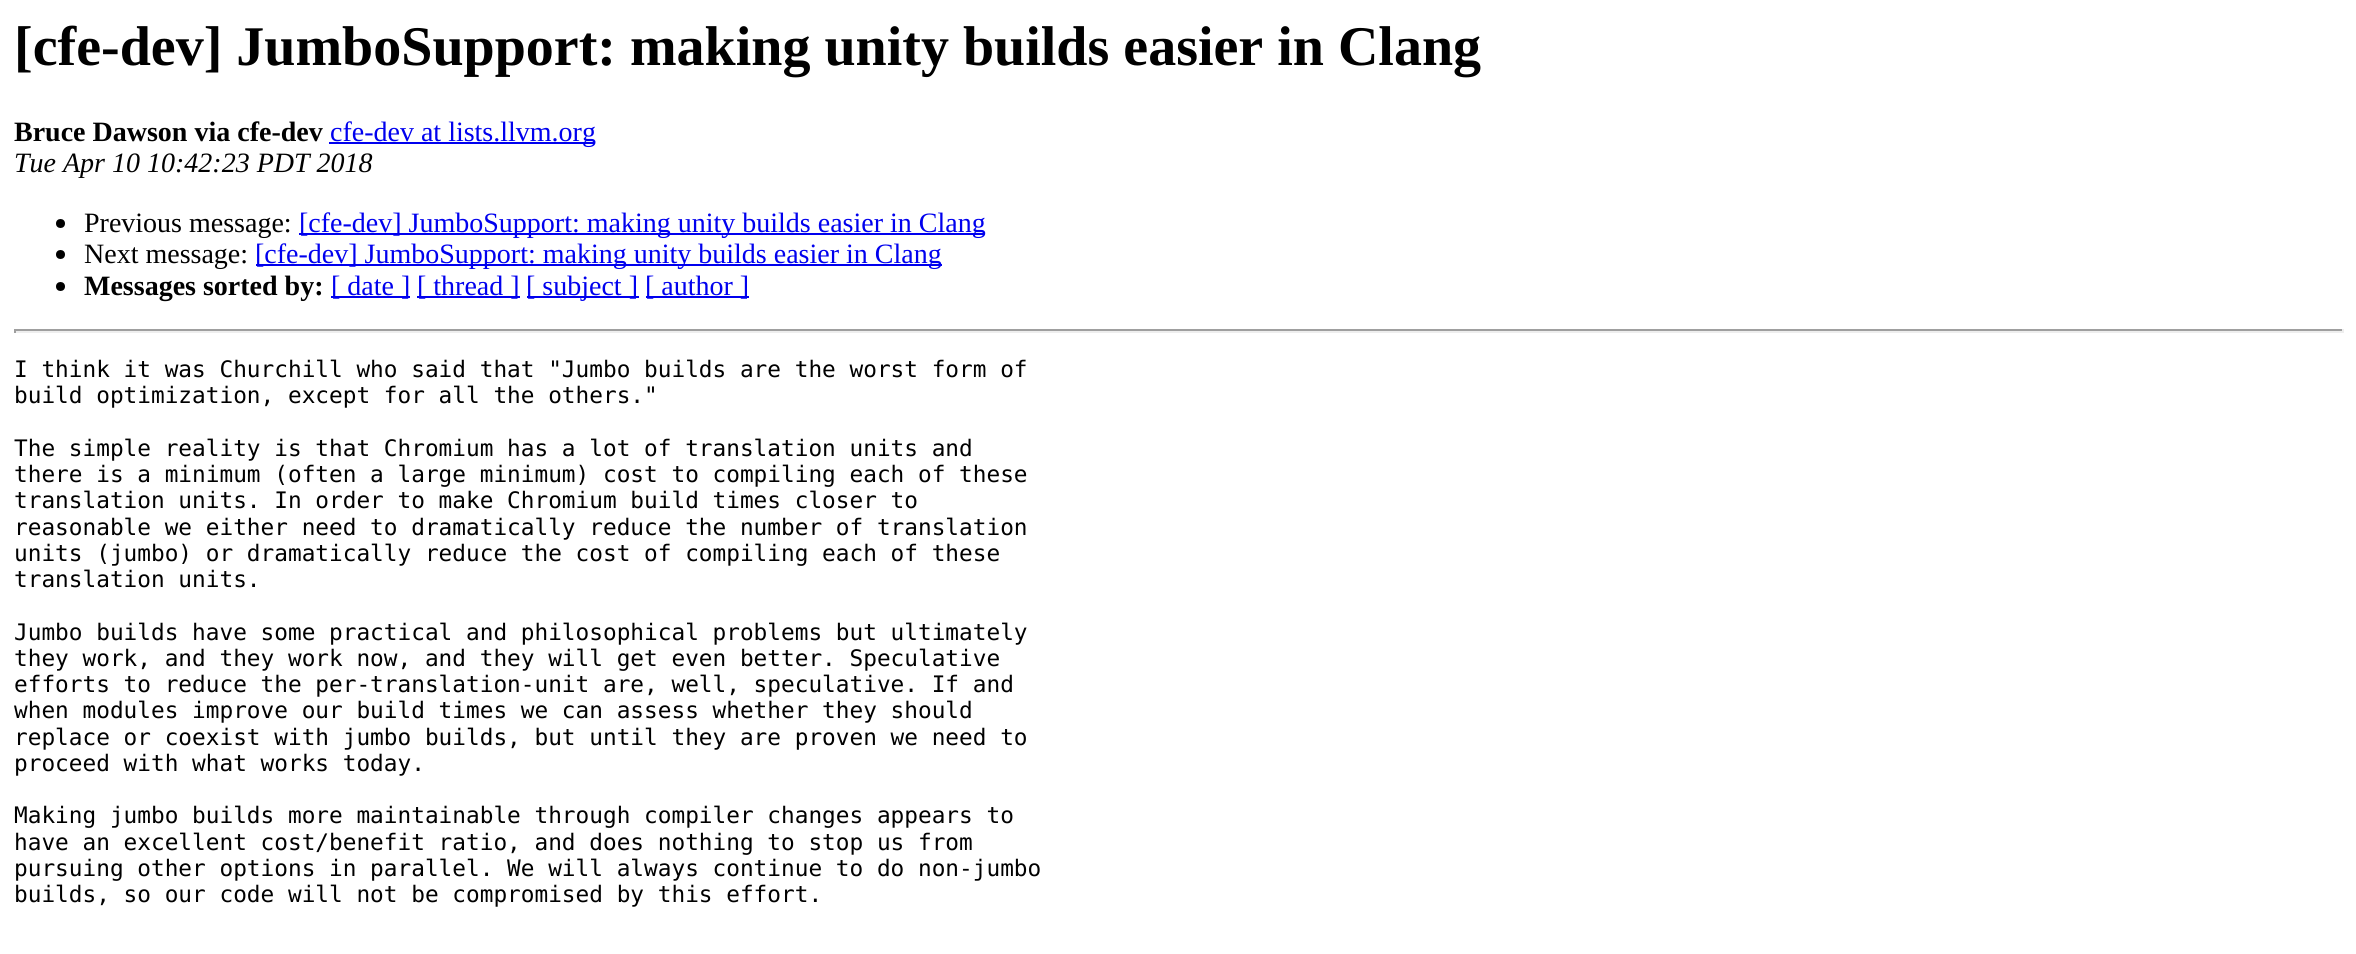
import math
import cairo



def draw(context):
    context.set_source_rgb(1, 1, 1)
    context.paint()
    context.set_source_rgb(0, 0, 238 / 255)
    context.rectangle(329, 142, 266, 2)
    context.fill()
    context.set_source_rgb(0, 0, 0)
    context.arc(60.5, 223.5, 4.5, 0, 2 * math.pi)
    context.fill()
    context.set_source_rgb(0, 0, 238 / 255)
    context.rectangle(299, 233, 686, 2)
    context.fill()
    context.set_source_rgb(0, 0, 0)
    context.arc(60.5, 254.5, 4.5, 0, 2 * math.pi)
    context.fill()
    context.set_source_rgb(0, 0, 238 / 255)
    context.rectangle(256, 264, 686, 2)
    context.fill()
    context.set_source_rgb(0, 0, 0)
    context.arc(60.5, 286.5, 4.5, 0, 2 * math.pi)
    context.fill()
    context.set_source_rgb(0, 0, 238 / 255)
    context.rectangle(331, 296, 79, 2)
    context.fill()
    context.rectangle(417, 296, 103, 2)
    context.fill()
    context.rectangle(527, 296, 112, 2)
    context.fill()
    context.rectangle(646, 296, 103, 2)
    context.fill()
    context.set_source_rgb(159 / 255, 159 / 255, 159 / 255)
    context.rectangle(14, 329, 2329, 2)
    context.fill()
    context.set_source_rgb(238 / 255, 238 / 255, 238 / 255)
    context.rectangle(2342, 329, 2, 4)
    context.fill()
    context.rectangle(14, 331, 2329, 2)
    context.fill()
    context.set_source_rgb(159 / 255, 159 / 255, 159 / 255)
    context.rectangle(14, 329, 2, 4)
    context.fill()
    context.select_font_face("Liberation Serif", cairo.FontSlant.NORMAL, cairo.FontWeight.BOLD)
    context.set_font_size(56)
    context.set_source_rgb(0, 0, 0)
    context.move_to(14, 65)
    context.show_text("[cfe-dev] JumboSupport: making unity builds easier in Clang")
    context.set_font_size(28)
    context.move_to(14, 141)
    context.show_text("Bruce Dawson via cfe-dev")
    context.select_font_face("Liberation Serif")
    context.set_source_rgb(0, 0, 238 / 255)
    context.move_to(330, 141)
    context.show_text("cfe-dev at lists.llvm.org")
    context.select_font_face("Liberation Serif", cairo.FontSlant.ITALIC)
    context.set_source_rgb(0, 0, 0)
    context.move_to(14, 172)
    context.show_text("Tue Apr 10 10:42:23 PDT 2018")
    context.select_font_face("Liberation Serif")
    context.move_to(84, 232)
    context.show_text("Previous message:")
    context.set_source_rgb(0, 0, 238 / 255)
    context.move_to(299, 232)
    context.show_text("[cfe-dev] JumboSupport: making unity builds easier in Clang")
    context.set_source_rgb(0, 0, 0)
    context.move_to(84, 263)
    context.show_text("Next message:")
    context.set_source_rgb(0, 0, 238 / 255)
    context.move_to(255, 263)
    context.show_text("[cfe-dev] JumboSupport: making unity builds easier in Clang")
    context.select_font_face("Liberation Serif", cairo.FontSlant.NORMAL, cairo.FontWeight.BOLD)
    context.set_source_rgb(0, 0, 0)
    context.move_to(84, 295)
    context.show_text("Messages sorted by:")
    context.select_font_face("Liberation Serif")
    context.set_source_rgb(0, 0, 238 / 255)
    context.move_to(331, 295)
    context.show_text("[ date ]")
    context.move_to(417, 295)
    context.show_text("[ thread ]")
    context.move_to(526, 295)
    context.show_text("[ subject ]")
    context.move_to(645, 295)
    context.show_text("[ author ]")
    context.select_font_face("DejaVu Sans Mono")
    context.set_font_size(22.75)
    context.set_source_rgb(0, 0, 0)
    context.move_to(14, 377)
    context.show_text("I think it was Churchill who said that \"Jumbo builds are the worst form of")
    context.move_to(14, 403)
    context.show_text("build optimization, except for all the others.\"")
    context.move_to(14, 456)
    context.show_text("The simple reality is that Chromium has a lot of translation units and")
    context.move_to(14, 482)
    context.show_text("there is a minimum (often a large minimum) cost to compiling each of these")
    context.move_to(14, 508)
    context.show_text("translation units. In order to make Chromium build times closer to")
    context.move_to(14, 535)
    context.show_text("reasonable we either need to dramatically reduce the number of translation")
    context.move_to(14, 561)
    context.show_text("units (jumbo) or dramatically reduce the cost of compiling each of these")
    context.move_to(14, 587)
    context.show_text("translation units.")
    context.move_to(14, 640)
    context.show_text("Jumbo builds have some practical and philosophical problems but ultimately")
    context.move_to(14, 666)
    context.show_text("they work, and they work now, and they will get even better. Speculative")
    context.move_to(14, 692)
    context.show_text("efforts to reduce the per-translation-unit are, well, speculative. If and")
    context.move_to(14, 718)
    context.show_text("when modules improve our build times we can assess whether they should")
    context.move_to(14, 745)
    context.show_text("replace or coexist with jumbo builds, but until they are proven we need to")
    context.move_to(14, 771)
    context.show_text("proceed with what works today.")
    context.move_to(14, 823)
    context.show_text("Making jumbo builds more maintainable through compiler changes appears to")
    context.move_to(14, 850)
    context.show_text("have an excellent cost/benefit ratio, and does nothing to stop us from")
    context.move_to(14, 876)
    context.show_text("pursuing other options in parallel. We will always continue to do non-jumbo")
    context.move_to(14, 902)
    context.show_text("builds, so our code will not be compromised by this effort.")


surface = cairo.ImageSurface(cairo.Format.RGB24, 2356, 954)
context = cairo.Context(surface)
options = cairo.FontOptions()
options.set_hint_metrics(cairo.HintMetrics.OFF)
options.set_hint_style(cairo.HintStyle.NONE)
context.set_font_options(options)
context.set_miter_limit(4)
draw(context)
surface.write_to_png("out.png")
